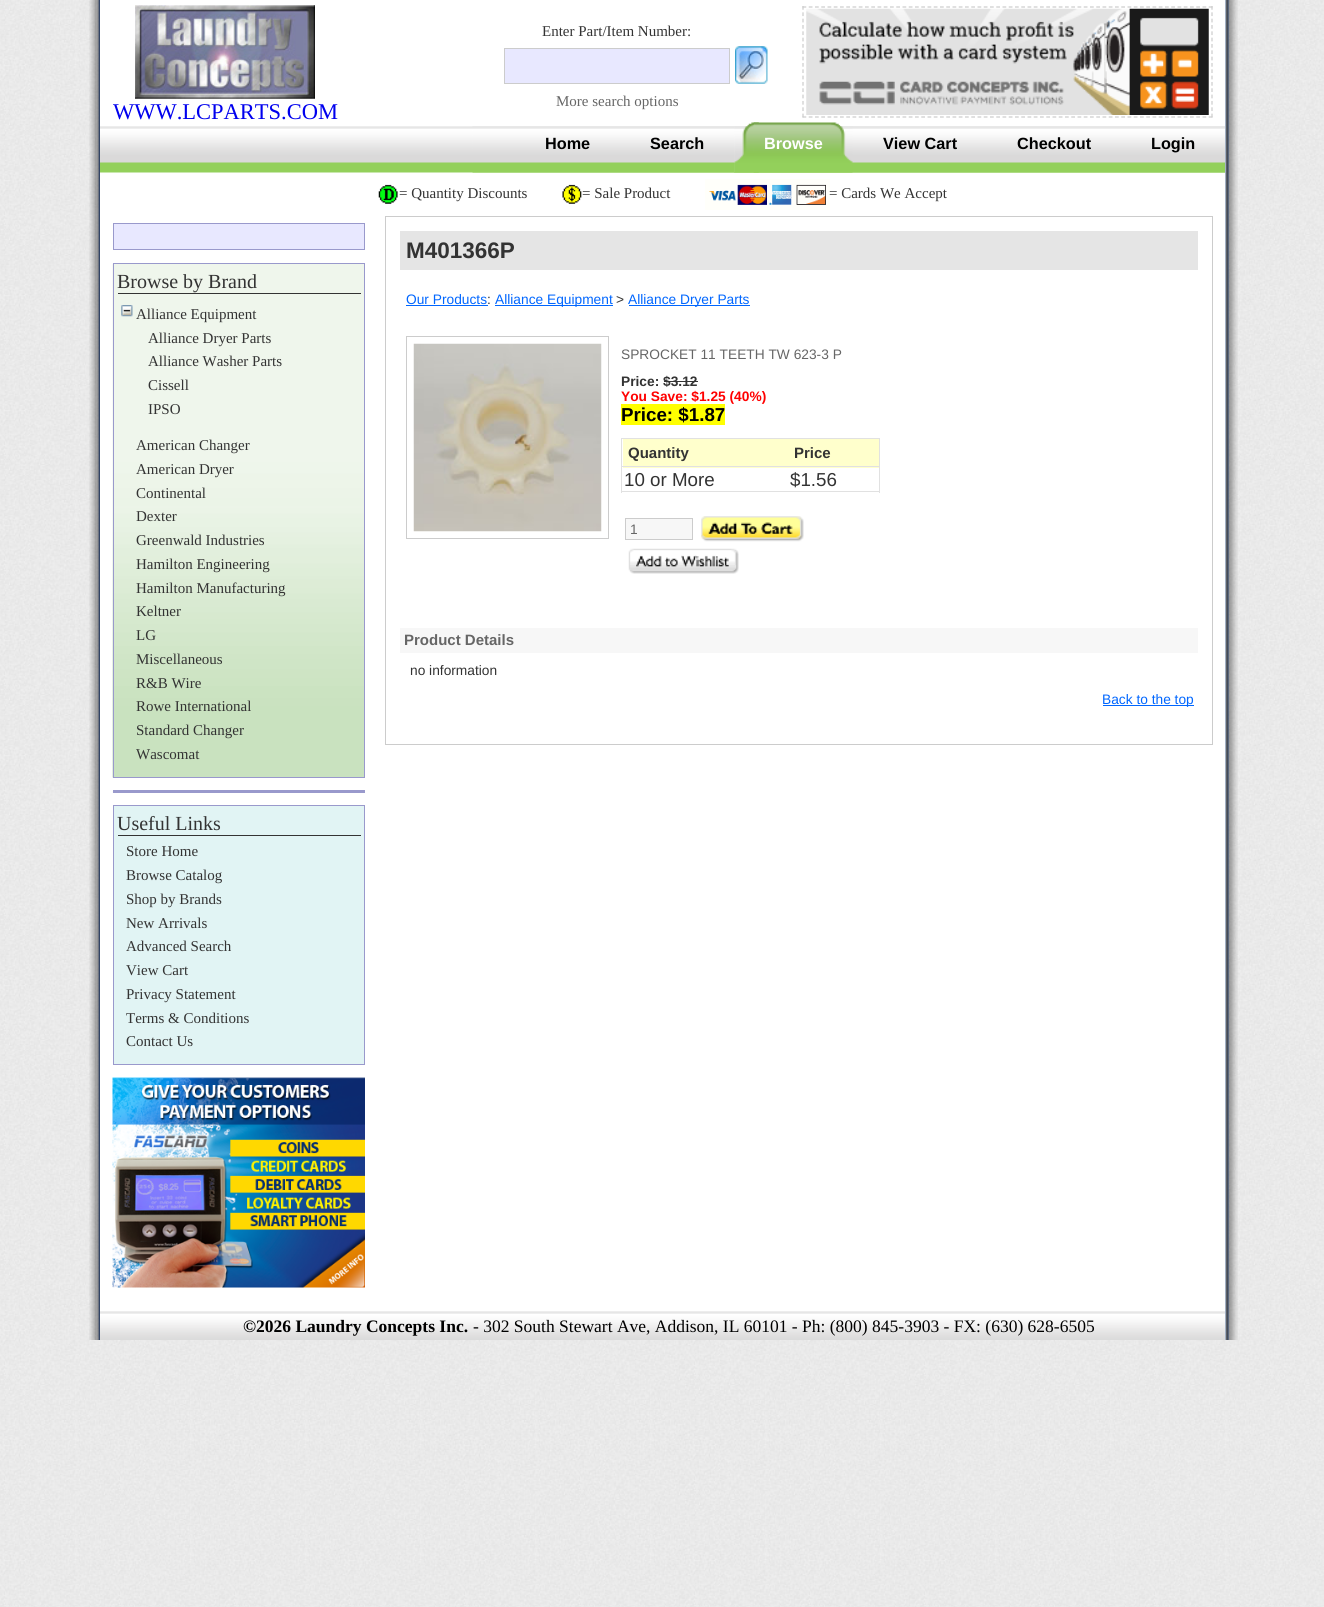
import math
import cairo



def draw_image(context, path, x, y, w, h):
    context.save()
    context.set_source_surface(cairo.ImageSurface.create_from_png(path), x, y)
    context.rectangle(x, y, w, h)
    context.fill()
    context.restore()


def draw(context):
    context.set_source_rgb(1, 1, 1)
    context.paint()
    draw_image(context, "images/1.png", 0, 0, 1324, 1607)
    draw_image(context, "images/2.png", 89, 0, 1149, 1340)
    context.set_source_rgb(1, 1, 1)
    context.rectangle(100, 0, 1125, 1312)
    context.fill()
    context.set_source_rgb(232 / 255, 232 / 255, 1)
    context.rectangle(504.5, 48.5, 225, 35)
    context.fill_preserve()
    context.set_source_rgb(204 / 255, 204 / 255, 204 / 255)
    context.set_line_width(1)
    context.stroke()
    draw_image(context, "images/3.png", 735, 46, 33, 38)
    context.new_path()
    context.move_to(802.5, 7)
    context.line_to(1212.5, 7)
    context.set_line_width(1.2)
    context.set_dash([3.75, 2.5])
    context.stroke()
    context.new_path()
    context.move_to(1212, 6)
    context.line_to(1212, 117.5)
    context.set_dash([3.75, 2.58])
    context.stroke()
    context.new_path()
    context.move_to(802.5, 117)
    context.line_to(1212.5, 117)
    context.set_dash([3.75, 2.5])
    context.stroke()
    context.new_path()
    context.move_to(803, 6)
    context.line_to(803, 117.5)
    context.set_dash([3.75, 2.58])
    context.stroke()
    draw_image(context, "images/4.png", 806, 8, 403, 107)
    draw_image(context, "images/5.png", 135, 5, 180, 94)
    draw_image(context, "images/6.png", 100, 126, 1125, 47)
    draw_image(context, "images/7.png", 472, 126, 753, 47)
    draw_image(context, "images/8.png", 734, 122, 25, 51)
    draw_image(context, "images/9.png", 753, 122, 100, 51)
    draw_image(context, "images/10.png", 378, 184, 20, 20)
    draw_image(context, "images/11.png", 562, 184, 20, 20)
    draw_image(context, "images/12.png", 705, 179, 125, 31)
    context.set_source_rgb(232 / 255, 232 / 255, 1)
    context.rectangle(113.5, 223.5, 251, 26)
    context.fill_preserve()
    context.set_source_rgb(153 / 255, 153 / 255, 204 / 255)
    context.set_line_width(1)
    context.set_dash([])
    context.stroke()
    draw_image(context, "images/13.png", 112, 263, 252, 515)
    context.rectangle(113.5, 263.5, 251, 514)
    context.stroke()
    context.set_source_rgb(51 / 255, 51 / 255, 51 / 255)
    context.rectangle(118, 293, 243, 1)
    context.fill()
    draw_image(context, "images/14.png", 121, 305, 12, 12)
    draw_image(context, "images/15.png", 112, 791, 1, 2)
    context.set_source_rgb(153 / 255, 153 / 255, 204 / 255)
    context.rectangle(113, 790, 252, 3)
    context.fill()
    context.set_source_rgb(225 / 255, 244 / 255, 244 / 255)
    context.rectangle(113.5, 805.5, 251, 259)
    context.fill_preserve()
    context.set_source_rgb(153 / 255, 153 / 255, 204 / 255)
    context.stroke()
    context.set_source_rgb(51 / 255, 51 / 255, 51 / 255)
    context.rectangle(118, 835, 243, 1)
    context.fill()
    draw_image(context, "images/16.png", 112, 1077, 253, 211)
    context.rectangle(385.5, 216.5, 827, 528)
    context.set_source_rgb(204 / 255, 204 / 255, 204 / 255)
    context.stroke()
    context.set_source_rgb(229 / 255, 229 / 255, 229 / 255)
    context.rectangle(400, 231, 798, 39)
    context.fill()
    context.set_source_rgb(0, 102 / 255, 1)
    context.rectangle(406, 305, 82, 1)
    context.fill()
    context.rectangle(495, 305, 118, 1)
    context.fill()
    context.rectangle(629, 305, 121, 1)
    context.fill()
    context.rectangle(406.5, 336.5, 202, 202)
    context.set_source_rgb(204 / 255, 204 / 255, 204 / 255)
    context.stroke()
    draw_image(context, "images/17.png", 413, 343, 189, 189)
    context.set_source_rgb(51 / 255, 51 / 255, 51 / 255)
    context.rectangle(664, 381, 34, 1)
    context.fill()
    context.set_source_rgb(1, 1, 0)
    context.rectangle(621, 404, 104, 21)
    context.fill()
    context.set_source_rgb(225 / 255, 225 / 255, 225 / 255)
    context.rectangle(621, 438, 259, 1)
    context.fill()
    context.rectangle(879, 438, 1, 55)
    context.fill()
    context.rectangle(621, 491, 259, 1)
    context.fill()
    context.rectangle(621, 438, 1, 55)
    context.fill()
    context.set_source_rgb(1, 1, 204 / 255)
    context.rectangle(623, 439, 256, 29)
    context.fill()
    context.set_source_rgb(225 / 255, 225 / 255, 225 / 255)
    context.rectangle(621, 466, 259, 1)
    context.fill()
    context.set_source_rgb(247 / 255, 247 / 255, 247 / 255)
    context.rectangle(625.5, 518.5, 67, 21)
    context.fill_preserve()
    context.set_source_rgb(204 / 255, 204 / 255, 204 / 255)
    context.stroke()
    draw_image(context, "images/18.png", 701, 516, 103, 26)
    draw_image(context, "images/19.png", 628, 548, 111, 26)
    context.set_source_rgb(247 / 255, 247 / 255, 247 / 255)
    context.rectangle(400, 628, 798, 25)
    context.fill()
    context.set_source_rgb(0, 102 / 255, 1)
    context.rectangle(1103, 705, 91, 1)
    context.fill()
    draw_image(context, "images/20.png", 100, 1311, 1125, 29)
    context.select_font_face("Liberation Serif")
    context.set_font_size(15)
    context.set_source_rgb(51 / 255, 51 / 255, 51 / 255)
    context.move_to(542, 36)
    context.show_text("Enter Part/Item Number:")
    context.set_source_rgb(102 / 255, 102 / 255, 102 / 255)
    context.move_to(556, 106)
    context.show_text("More search options")
    context.set_font_size(22.5)
    context.set_source_rgb(0, 0, 238 / 255)
    context.move_to(113, 119)
    context.show_text("WWW.LCPARTS.COM")
    context.select_font_face("Liberation Sans", cairo.FontSlant.NORMAL, cairo.FontWeight.BOLD)
    context.set_font_size(16.25)
    context.set_source_rgb(0, 0, 0)
    context.move_to(545, 149)
    context.show_text("Home")
    context.move_to(650, 149)
    context.show_text("Search")
    context.set_source_rgb(1, 1, 1)
    context.move_to(764, 149)
    context.show_text("Browse")
    context.set_source_rgb(0, 0, 0)
    context.move_to(883, 149)
    context.show_text("View Cart")
    context.move_to(1017, 149)
    context.show_text("Checkout")
    context.move_to(1151, 149)
    context.show_text("Login")
    context.select_font_face("Liberation Serif")
    context.set_font_size(15)
    context.set_source_rgb(51 / 255, 51 / 255, 51 / 255)
    context.move_to(399, 198)
    context.show_text("= Quantity Discounts")
    context.move_to(582, 198)
    context.show_text("= Sale Product")
    context.move_to(829, 198)
    context.show_text("= Cards We Accept")
    context.set_font_size(20)
    context.move_to(117, 288)
    context.show_text("Browse by Brand")
    context.set_font_size(15)
    context.move_to(136, 319)
    context.show_text("Alliance Equipment")
    context.move_to(148, 343)
    context.show_text("Alliance Dryer Parts")
    context.move_to(148, 366)
    context.show_text("Alliance Washer Parts")
    context.move_to(148, 390)
    context.show_text("Cissell")
    context.move_to(148, 414)
    context.show_text("IPSO")
    context.move_to(136, 450)
    context.show_text("American Changer")
    context.move_to(136, 474)
    context.show_text("American Dryer")
    context.move_to(136, 498)
    context.show_text("Continental")
    context.move_to(136, 521)
    context.show_text("Dexter")
    context.move_to(136, 545)
    context.show_text("Greenwald Industries")
    context.move_to(136, 569)
    context.show_text("Hamilton Engineering")
    context.move_to(136, 593)
    context.show_text("Hamilton Manufacturing")
    context.move_to(136, 616)
    context.show_text("Keltner")
    context.move_to(136, 640)
    context.show_text("LG")
    context.move_to(136, 664)
    context.show_text("Miscellaneous")
    context.move_to(136, 688)
    context.show_text("R&B Wire")
    context.move_to(136, 711)
    context.show_text("Rowe International")
    context.move_to(136, 735)
    context.show_text("Standard Changer")
    context.move_to(136, 759)
    context.show_text("Wascomat")
    context.set_font_size(20)
    context.move_to(117, 830)
    context.show_text("Useful Links")
    context.set_font_size(15)
    context.move_to(126, 856)
    context.show_text("Store Home")
    context.move_to(126, 880)
    context.show_text("Browse Catalog")
    context.move_to(126, 904)
    context.show_text("Shop by Brands")
    context.move_to(126, 928)
    context.show_text("New Arrivals")
    context.move_to(126, 951)
    context.show_text("Advanced Search")
    context.move_to(126, 975)
    context.show_text("View Cart")
    context.move_to(126, 999)
    context.show_text("Privacy Statement")
    context.move_to(126, 1023)
    context.show_text("Terms & Conditions")
    context.move_to(126, 1046)
    context.show_text("Contact Us")
    context.select_font_face("Liberation Sans", cairo.FontSlant.NORMAL, cairo.FontWeight.BOLD)
    context.set_font_size(22.5)
    context.move_to(406, 258)
    context.show_text("M401366P")
    context.select_font_face("Liberation Sans")
    context.set_font_size(13.75)
    context.set_source_rgb(0, 102 / 255, 1)
    context.move_to(406, 304)
    context.show_text("Our Products")
    context.set_source_rgb(51 / 255, 51 / 255, 51 / 255)
    context.move_to(487, 304)
    context.show_text(":")
    context.set_source_rgb(0, 102 / 255, 1)
    context.move_to(495, 304)
    context.show_text("Alliance Equipment")
    context.set_source_rgb(51 / 255, 51 / 255, 51 / 255)
    context.move_to(616, 304)
    context.show_text(">")
    context.set_source_rgb(0, 102 / 255, 1)
    context.move_to(628, 304)
    context.show_text("Alliance Dryer Parts")
    context.set_source_rgb(102 / 255, 102 / 255, 102 / 255)
    context.move_to(621, 359)
    context.show_text("SPROCKET 11 TEETH TW 623-3 P")
    context.select_font_face("Liberation Sans", cairo.FontSlant.NORMAL, cairo.FontWeight.BOLD)
    context.set_source_rgb(51 / 255, 51 / 255, 51 / 255)
    context.move_to(621, 386)
    context.show_text("Price: $3.12")
    context.set_source_rgb(1, 0, 0)
    context.move_to(621, 401)
    context.show_text("You Save: $1.25 (40%)")
    context.set_font_size(18.75)
    context.set_source_rgb(0, 0, 0)
    context.move_to(621, 421)
    context.show_text("Price: $1.87")
    context.set_font_size(15)
    context.set_source_rgb(51 / 255, 51 / 255, 51 / 255)
    context.move_to(628, 458)
    context.show_text("Quantity")
    context.move_to(794, 458)
    context.show_text("Price")
    context.select_font_face("Liberation Sans")
    context.set_font_size(18.75)
    context.move_to(624, 486)
    context.show_text("10 or More")
    context.move_to(790, 486)
    context.show_text("$1.56")
    context.set_font_size(13.75)
    context.set_source_rgb(102 / 255, 102 / 255, 102 / 255)
    context.move_to(630, 534)
    context.show_text("1")
    context.select_font_face("Liberation Sans", cairo.FontSlant.NORMAL, cairo.FontWeight.BOLD)
    context.set_font_size(15)
    context.move_to(404, 645)
    context.show_text("Product Details")
    context.select_font_face("Liberation Sans")
    context.set_font_size(13.75)
    context.set_source_rgb(51 / 255, 51 / 255, 51 / 255)
    context.move_to(410, 675)
    context.show_text("no information")
    context.set_source_rgb(0, 102 / 255, 1)
    context.move_to(1102, 704)
    context.show_text("Back to the top")
    context.select_font_face("Liberation Serif", cairo.FontSlant.NORMAL, cairo.FontWeight.BOLD)
    context.set_font_size(17.5)
    context.set_source_rgb(0, 0, 0)
    context.move_to(243, 1332)
    context.show_text("©2026 Laundry Concepts Inc.")
    context.select_font_face("Liberation Serif")
    context.move_to(473, 1332)
    context.show_text("- 302 South Stewart Ave, Addison, IL 60101 - Ph: (800) 845-3903 - FX: (630) 628-6505")


surface = cairo.ImageSurface(cairo.Format.RGB24, 1324, 1607)
context = cairo.Context(surface)
options = cairo.FontOptions()
options.set_hint_metrics(cairo.HintMetrics.OFF)
options.set_hint_style(cairo.HintStyle.NONE)
context.set_font_options(options)
context.set_miter_limit(4)
draw(context)
surface.write_to_png("out.png")
